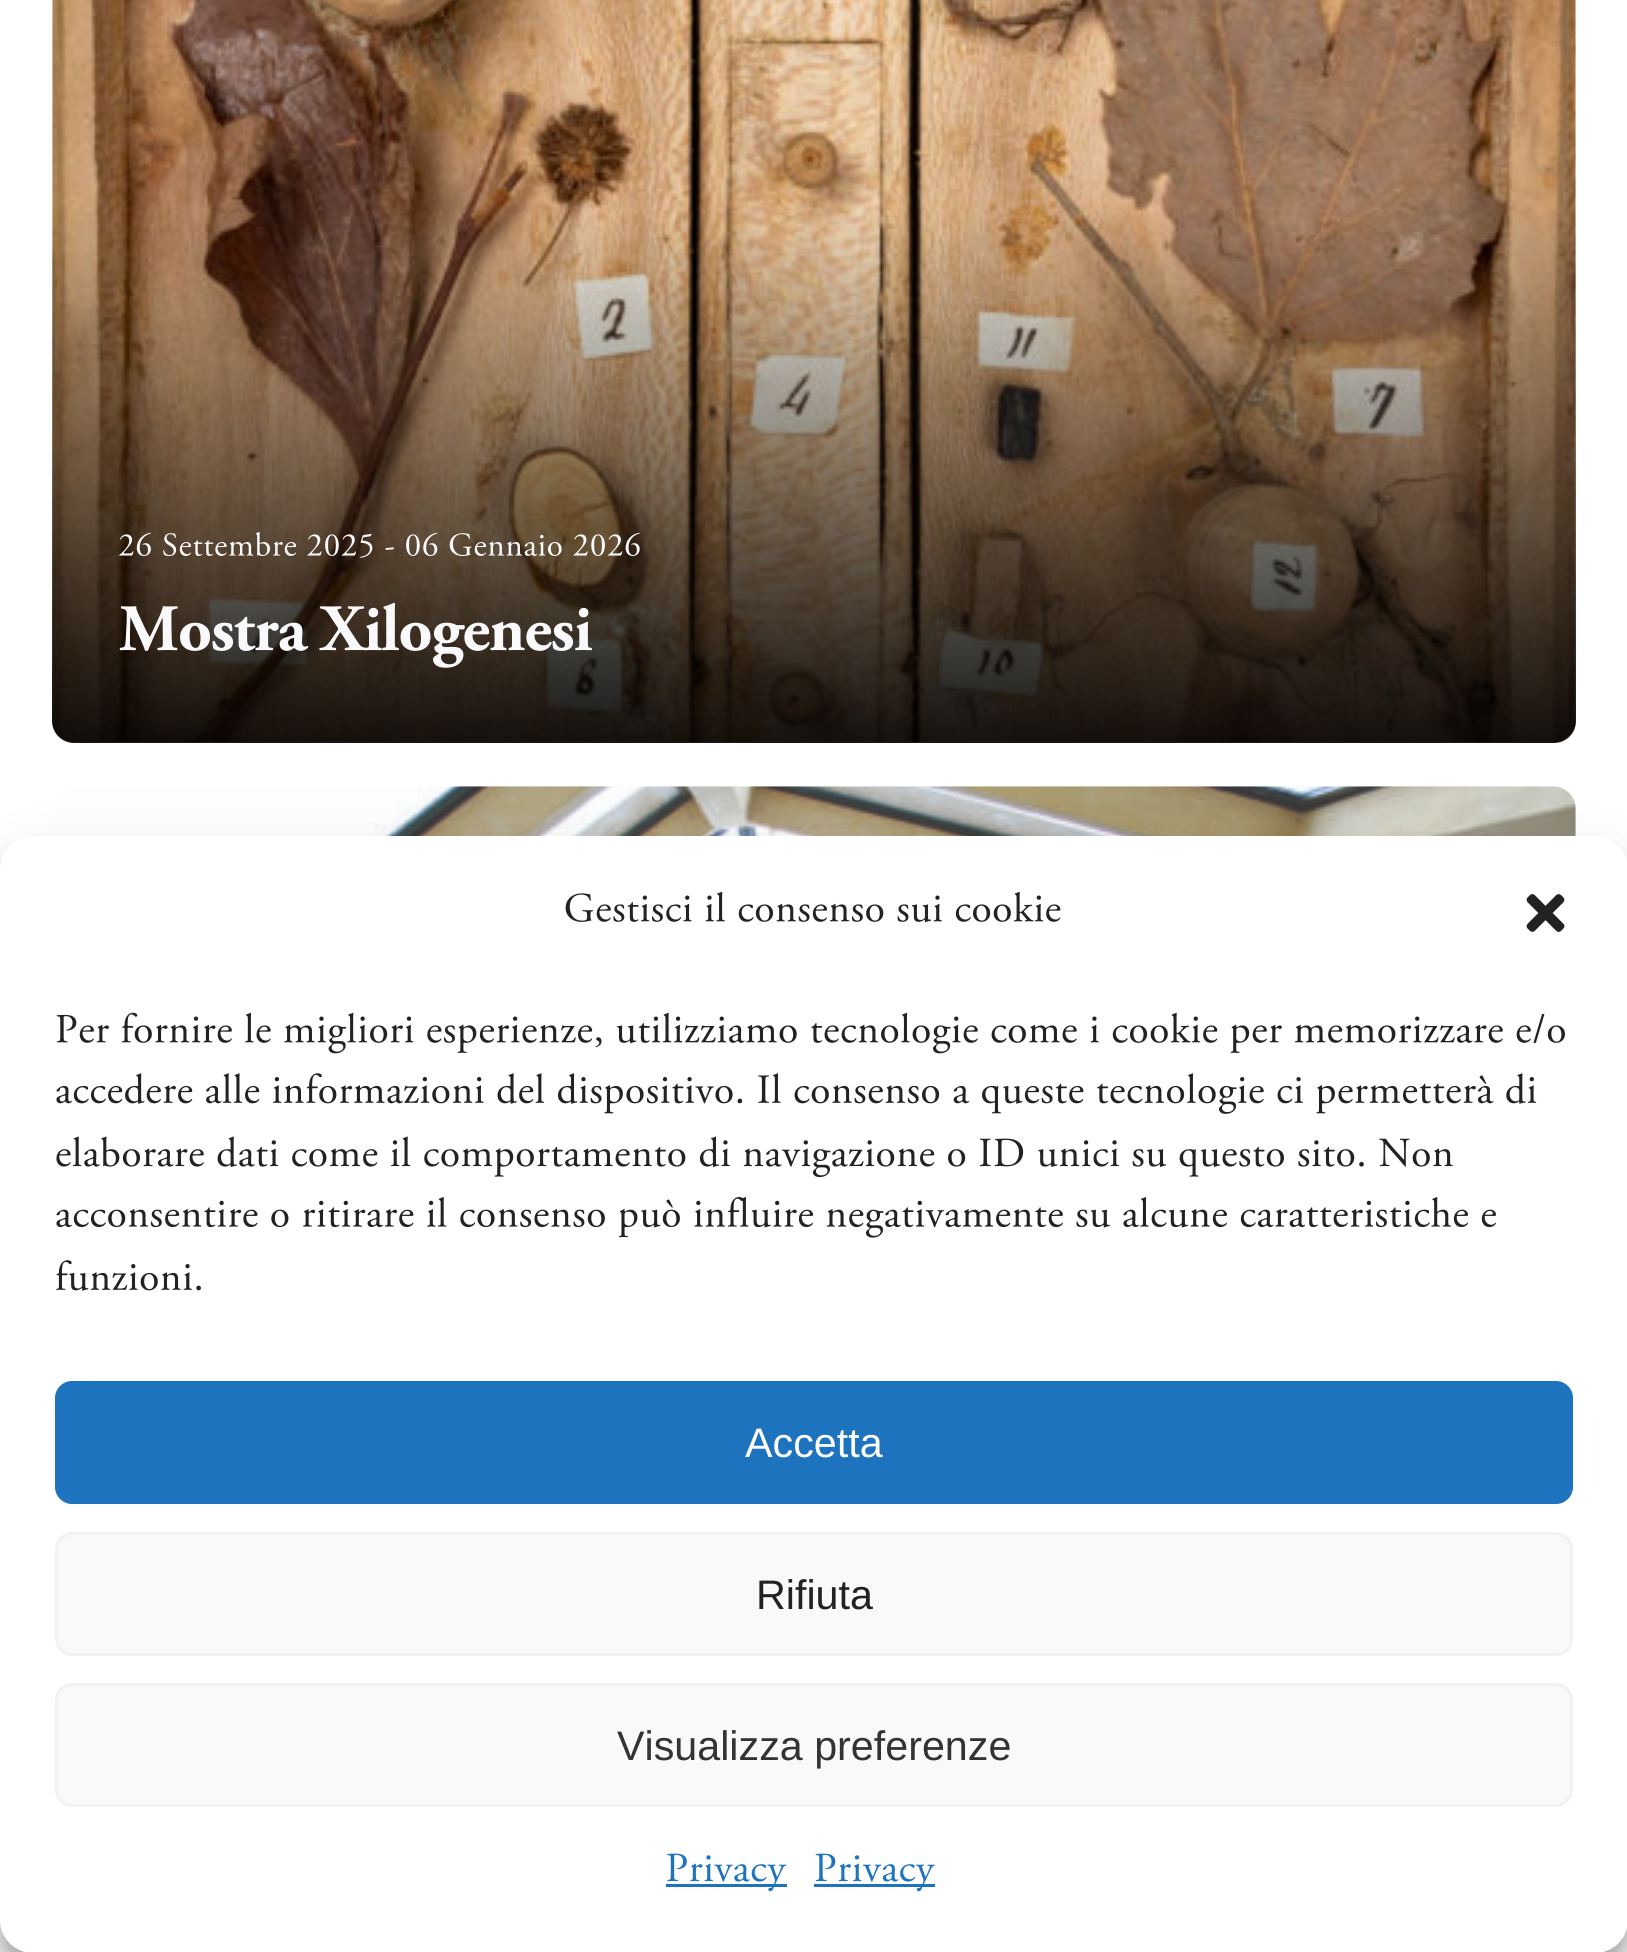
import math
import cairo



def draw_spaced(context, x, y, s, letter, word):
    context.move_to(x, y)
    for ch in s:
        context.show_text(ch)
        context.rel_move_to(letter + word * (ch == ' '), 0)


def rounded_rect(context, x, y, w, h, r):
    context.new_sub_path()
    for i, (u, v) in enumerate([(x + w - r, y + h - r), (x + r, y + h - r), (x + r, y + r), (x + w - r, y + r)]):
        context.arc(u, v, r, i * math.pi / 2, (i + 1) * math.pi / 2)
    context.close_path()


def draw_shadow(context, x, y, w, h, r, blur, alpha):
    context.push_group_with_content(cairo.Content.ALPHA)
    context.set_operator(cairo.Operator.SOURCE)
    for i in range(15, -16, -2):
        e = blur * i / 6
        if min(w, h) + 2 * e > 0:
            context.set_source_rgba(0, 0, 0, alpha * math.erfc((i - 1) / 8.5) / 2)
            rounded_rect(context, x - e, y - e, w + 2 * e, h + 2 * e, max(0, min(r + e + blur * .6, min(w, h) / 2 + e)))
            context.fill()
    context.mask(context.pop_group())


def draw_image(context, path, x, y, w, h):
    context.save()
    context.set_source_surface(cairo.ImageSurface.create_from_png(path), x, y)
    context.rectangle(x, y, w, h)
    context.fill()
    context.restore()


def draw(context):
    context.set_source_rgb(1, 1, 1)
    context.paint()
    draw_image(context, "images/1.png", 52, 0, 1524, 743)
    gradient = cairo.LinearGradient(814, 743, 814, -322)
    gradient.add_color_stop_rgba(0, 0, 0, 0, 0.9)
    gradient.add_color_stop_rgba(0.5, 0, 0, 0, 0)
    context.set_source(gradient)
    rounded_rect(context, 52, -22, 1524, 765, 22)
    context.fill()
    draw_image(context, "images/2.png", 119, 532, 521, 26)
    draw_image(context, "images/3.png", 52, 786, 1524, 50)
    context.set_source_rgb(0, 0, 0)
    draw_shadow(context, 0, 853, 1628, 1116, 33, 8, 0.23)
    draw_shadow(context, 0, 864, 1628, 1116, 33, 27.5, 0.19)
    context.set_source_rgb(1, 1, 1)
    rounded_rect(context, 0, 836, 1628, 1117, 33)
    context.fill()
    draw_image(context, "images/4.png", 565, 891, 496, 32)
    draw_image(context, "images/5.png", 1526, 894, 39, 38)
    draw_image(context, "images/6.png", 56, 1012, 1509, 42)
    draw_image(context, "images/7.png", 56, 1073, 1481, 41)
    draw_image(context, "images/8.png", 56, 1136, 1397, 42)
    draw_image(context, "images/9.png", 56, 1197, 1440, 41)
    draw_image(context, "images/10.png", 56, 1260, 145, 31)
    context.set_source_rgb(30 / 255, 115 / 255, 190 / 255)
    rounded_rect(context, 56.5, 1382.5, 1515, 120, 15.5)
    context.fill_preserve()
    context.set_line_width(3)
    context.stroke()
    context.set_source_rgb(249 / 255, 249 / 255, 249 / 255)
    rounded_rect(context, 56.5, 1533.5, 1515, 121, 15.5)
    context.fill_preserve()
    context.set_source_rgb(242 / 255, 242 / 255, 242 / 255)
    context.stroke()
    context.set_source_rgb(249 / 255, 249 / 255, 249 / 255)
    rounded_rect(context, 56.5, 1684.5, 1515, 121, 15.5)
    context.fill_preserve()
    context.set_source_rgb(242 / 255, 242 / 255, 242 / 255)
    context.stroke()
    context.set_source_rgb(30 / 255, 115 / 255, 190 / 255)
    context.rectangle(666, 1884, 121, 3)
    context.fill()
    draw_image(context, "images/11.png", 667, 1853, 120, 39)
    context.rectangle(814, 1884, 121, 3)
    context.fill()
    draw_image(context, "images/12.png", 815, 1853, 120, 39)
    context.select_font_face("Adobe Garamond", cairo.FontSlant.NORMAL, cairo.FontWeight.BOLD)
    context.set_font_size(66)
    context.set_source_rgb(249 / 255, 249 / 255, 251 / 255)
    draw_spaced(context, 119, 650, "Mostra Xilogenesi", -1, 0)
    context.select_font_face("Liberation Sans")
    context.set_font_size(41.25)
    context.set_source_rgb(1, 1, 1)
    context.move_to(745, 1457)
    context.show_text("Accetta")
    context.set_source_rgb(34 / 255, 34 / 255, 34 / 255)
    context.move_to(756, 1609)
    context.show_text("Rifiuta")
    context.set_source_rgb(51 / 255, 51 / 255, 51 / 255)
    context.move_to(617, 1760)
    context.show_text("Visualizza preferenze")


surface = cairo.ImageSurface(cairo.Format.RGB24, 1627, 1952)
context = cairo.Context(surface)
options = cairo.FontOptions()
options.set_hint_metrics(cairo.HintMetrics.OFF)
options.set_hint_style(cairo.HintStyle.NONE)
context.set_font_options(options)
context.set_miter_limit(4)
draw(context)
surface.write_to_png("out.png")
